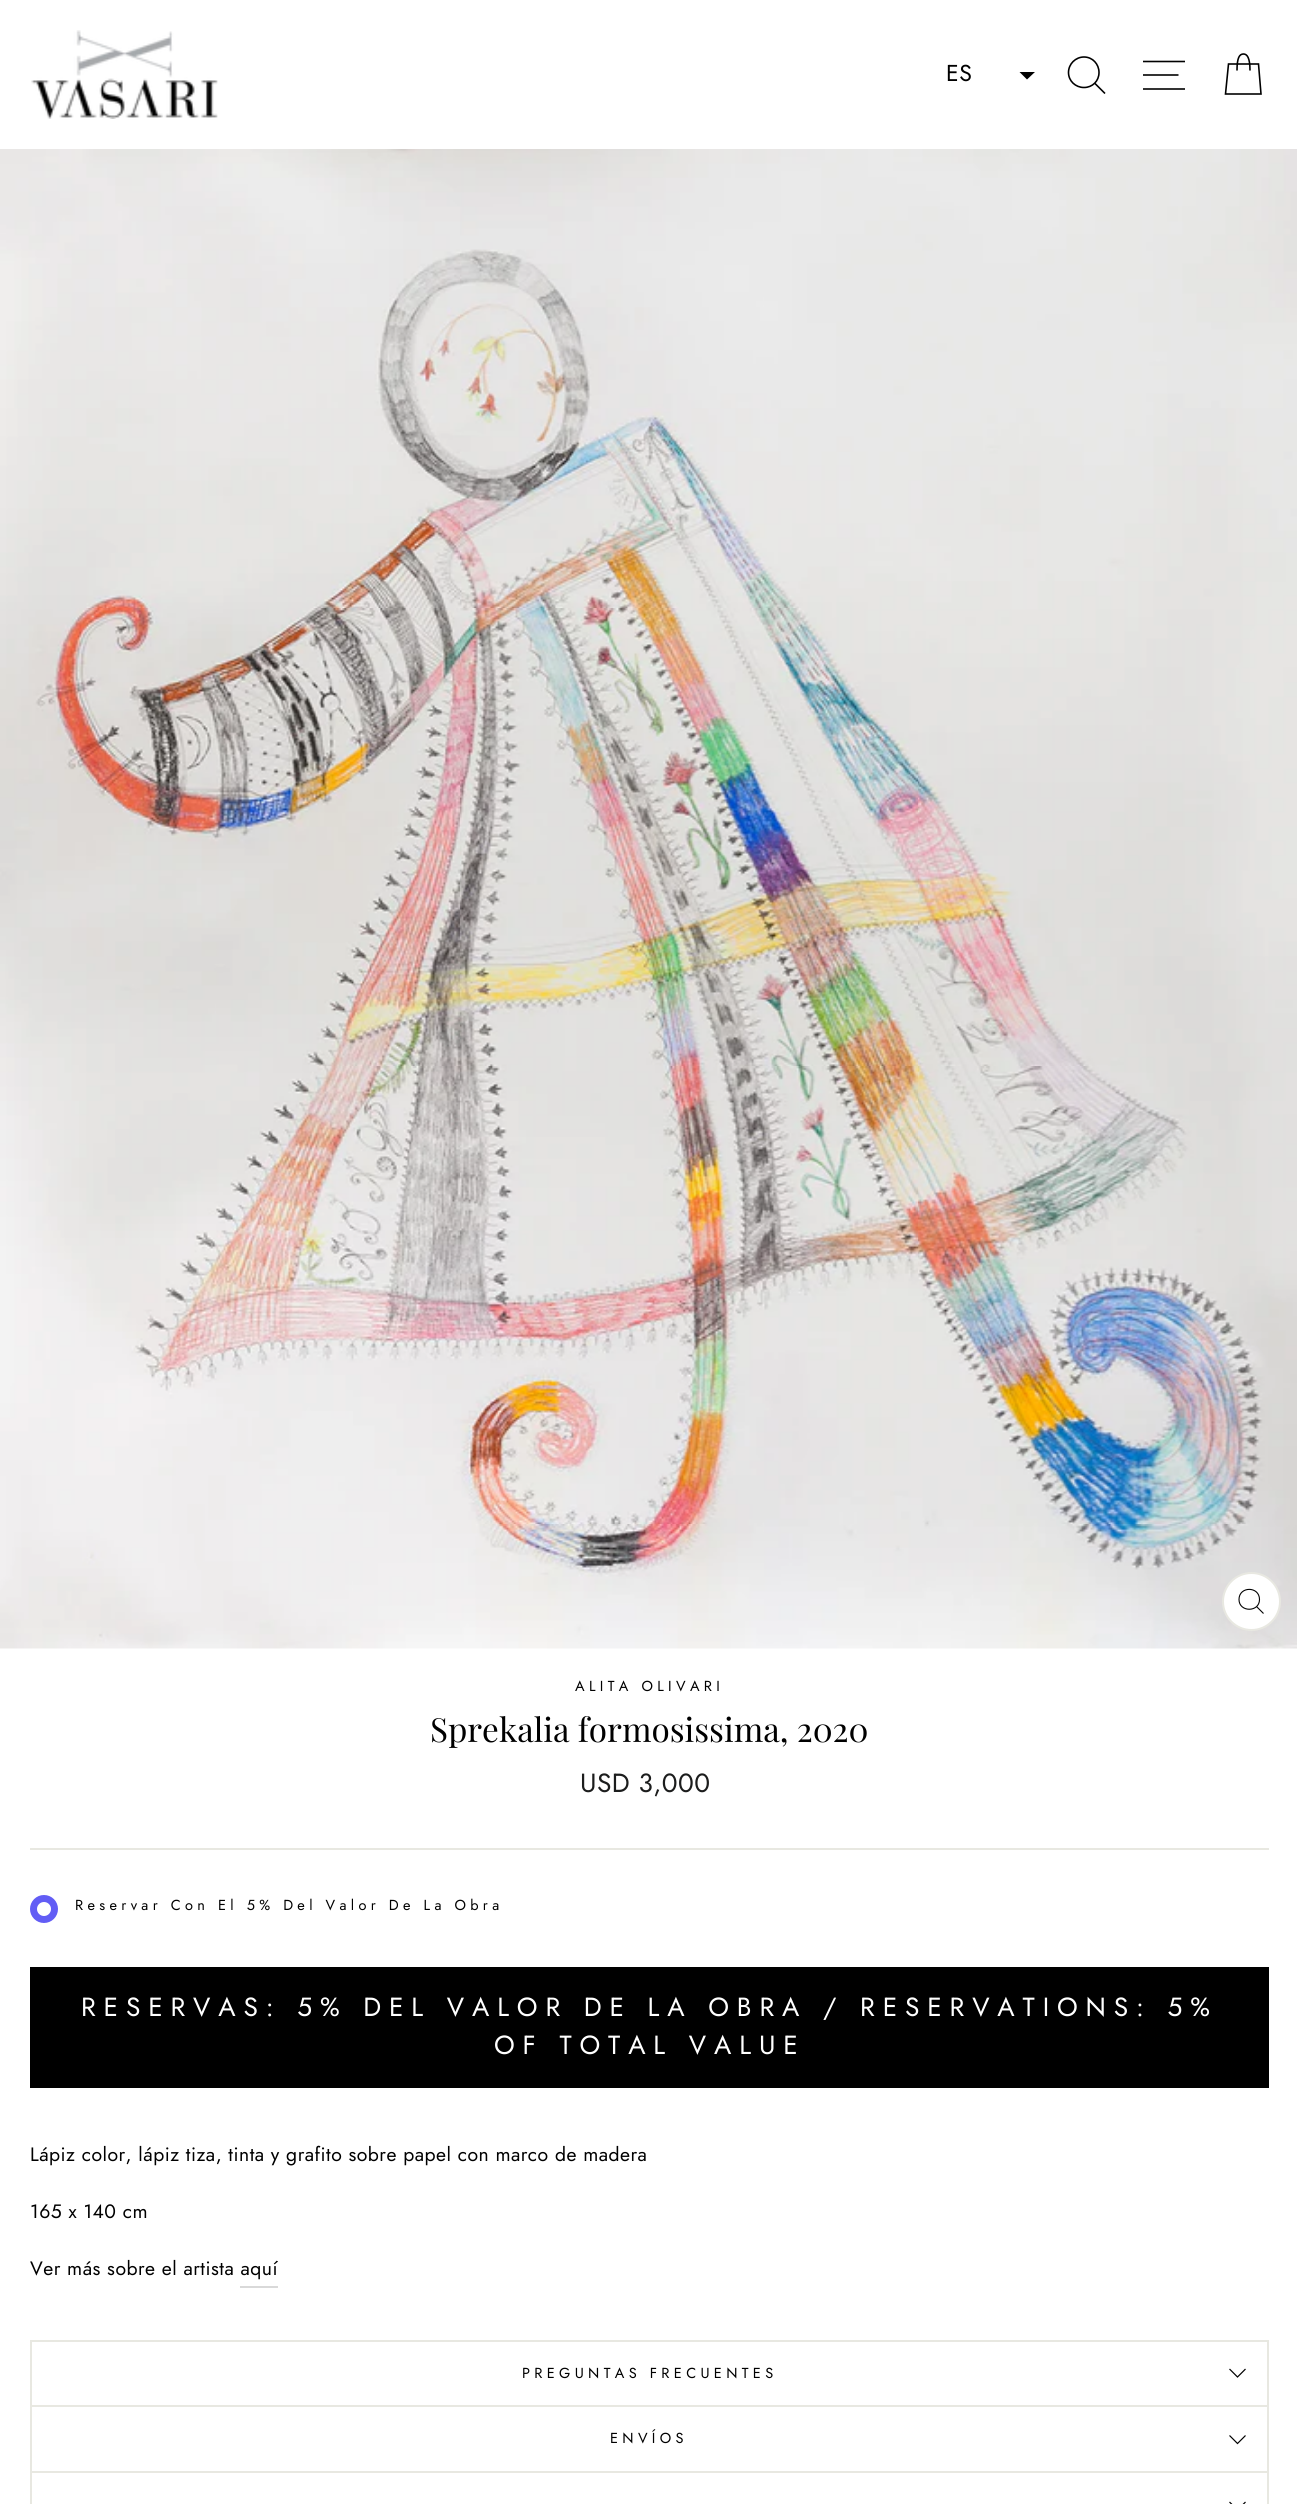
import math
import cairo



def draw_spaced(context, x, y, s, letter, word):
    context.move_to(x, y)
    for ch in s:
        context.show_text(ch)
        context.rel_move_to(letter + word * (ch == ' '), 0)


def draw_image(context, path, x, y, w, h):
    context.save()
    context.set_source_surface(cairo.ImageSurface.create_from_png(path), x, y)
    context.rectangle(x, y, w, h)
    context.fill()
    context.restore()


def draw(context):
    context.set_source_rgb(1, 1, 1)
    context.paint()
    draw_image(context, "images/1.png", 31, 30, 187, 89)
    context.save()
    context.rectangle(1019, 72, 17, 9)
    context.clip()
    context.set_source_rgb(0, 0, 0)
    context.set_fill_rule(cairo.FillRule.EVEN_ODD)
    context.new_path()
    context.move_to(1036, 71)
    context.line_to(1027, 79.5)
    context.line_to(1018.5, 71)
    context.close_path()
    context.fill()
    context.restore()
    context.new_path()
    context.move_to(1099, 72.5)
    context.curve_to(1099, 81, 1092.5, 87.5, 1084, 87.5)
    context.curve_to(1075.5, 87.5, 1068.5, 81, 1068.5, 72.5)
    context.curve_to(1068.5, 64, 1075.5, 57, 1084, 57)
    context.curve_to(1092.5, 57, 1099, 64, 1099, 72.5)
    context.close_path()
    context.move_to(1105, 93.5)
    context.line_to(1095, 83.5)
    context.set_source_rgb(0, 0, 0)
    context.set_line_width(1.6)
    context.stroke()
    context.new_path()
    context.move_to(1143, 61.5)
    context.line_to(1185, 61.5)
    context.move_to(1143, 75)
    context.line_to(1178.5, 75)
    context.move_to(1143, 89)
    context.line_to(1185, 89)
    context.stroke()
    context.new_path()
    context.move_to(1237, 70.5)
    context.curve_to(1237, 57.5, 1239.5, 54, 1243.5, 54)
    context.curve_to(1247, 54, 1250, 57.5, 1250, 70.5)
    context.move_to(1228.5, 64)
    context.line_to(1258.5, 64)
    context.line_to(1261, 94)
    context.line_to(1225.5, 94)
    context.close_path()
    context.stroke()
    draw_image(context, "images/2.png", 0, 149, 1297, 1500)
    context.set_source_rgb(1, 1, 1)
    context.arc(1251.5, 1601.5, 28.5, 0, 2 * math.pi)
    context.fill_preserve()
    context.set_source_rgb(232 / 255, 232 / 255, 225 / 255)
    context.set_line_width(2)
    context.stroke()
    context.new_path()
    context.move_to(1259.5, 1599.5)
    context.curve_to(1259.5, 1612.5, 1239, 1612.5, 1239, 1599.5)
    context.curve_to(1239, 1586, 1259.5, 1586, 1259.5, 1599.5)
    context.close_path()
    context.move_to(1263.5, 1613.5)
    context.line_to(1256.5, 1606.5)
    context.set_source_rgb(0, 0, 0)
    context.set_line_width(1.1)
    context.stroke()
    context.set_source_rgb(232 / 255, 232 / 255, 225 / 255)
    context.rectangle(30, 1848, 1239, 2)
    context.fill()
    context.arc(44, 1909, 10.5, 0, 2 * math.pi)
    context.set_source_rgb(98 / 255, 93 / 255, 245 / 255)
    context.set_line_width(7)
    context.stroke()
    context.set_source_rgb(0, 0, 0)
    context.rectangle(30, 1967, 1239, 121)
    context.fill()
    context.set_source_rgb(217 / 255, 217 / 255, 217 / 255)
    context.rectangle(240, 2286, 38, 2)
    context.fill()
    context.set_source_rgb(232 / 255, 232 / 255, 225 / 255)
    context.rectangle(30, 2340, 1239, 2)
    context.fill()
    context.rectangle(1267, 2340, 2, 66)
    context.fill()
    context.rectangle(30, 2340, 2, 66)
    context.fill()
    context.new_path()
    context.move_to(1229.5, 2369)
    context.line_to(1237.5, 2377)
    context.line_to(1245.5, 2369)
    context.set_source_rgb(0, 0, 0)
    context.set_line_width(1.2)
    context.stroke()
    context.set_source_rgb(232 / 255, 232 / 255, 225 / 255)
    context.rectangle(30, 2405, 1239, 2)
    context.fill()
    context.rectangle(1267, 2405, 2, 66)
    context.fill()
    context.rectangle(30, 2405, 2, 66)
    context.fill()
    context.new_path()
    context.move_to(1229.5, 2435.5)
    context.line_to(1237.5, 2443.5)
    context.line_to(1245.5, 2435.5)
    context.set_source_rgb(0, 0, 0)
    context.stroke()
    context.set_source_rgb(232 / 255, 232 / 255, 225 / 255)
    context.rectangle(30, 2471, 1239, 2)
    context.fill()
    context.rectangle(1267, 2471, 2, 33)
    context.fill()
    context.rectangle(30, 2471, 2, 33)
    context.fill()
    context.new_path()
    context.move_to(1229.5, 2502)
    context.line_to(1237.5, 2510)
    context.line_to(1245.5, 2502)
    context.set_source_rgb(0, 0, 0)
    context.stroke()
    context.select_font_face("Jost")
    context.set_font_size(23)
    draw_spaced(context, 946, 81, "ES", 0.48, 0)
    context.set_font_size(14.5)
    draw_spaced(context, 575, 1691, "ALITA OLIVARI", 4.35, 0)
    context.select_font_face("Playfair Display")
    context.set_font_size(33.25)
    context.move_to(430, 1742)
    context.show_text("Sprekalia formosissima, 2020")
    context.select_font_face("Jost")
    context.set_font_size(26.25)
    context.set_source_rgb(28 / 255, 29 / 255, 29 / 255)
    draw_spaced(context, 580, 1792, "USD 3,000", 0.48, 0)
    context.set_font_size(14.5)
    context.set_source_rgb(0, 0, 0)
    draw_spaced(context, 75, 1910, "Reservar Con El 5% Del Valor De La Obra", 4.35, 0)
    context.set_font_size(26.25)
    context.set_source_rgb(1, 1, 1)
    draw_spaced(context, 81, 2016, "RESERVAS: 5% DEL VALOR DE LA OBRA / RESERVATIONS: 5%", 7.88, 0)
    draw_spaced(context, 494, 2054, "OF TOTAL VALUE", 7.88, 0)
    context.set_font_size(19.35)
    context.set_source_rgb(0, 0, 0)
    draw_spaced(context, 30, 2161, "Lápiz color, lápiz tiza, tinta y grafito sobre papel con marco de madera", 0.48, 0)
    draw_spaced(context, 30, 2218, "165 x 140 cm", 0.48, 0)
    draw_spaced(context, 30, 2275, "Ver más sobre el artista aquí", 0.48, 0)
    context.set_font_size(14.5)
    draw_spaced(context, 522, 2378, "PREGUNTAS FRECUENTES", 4.35, 0)
    draw_spaced(context, 610, 2443, "ENVÍOS", 4.35, 0)


surface = cairo.ImageSurface(cairo.Format.RGB24, 1297, 2504)
context = cairo.Context(surface)
options = cairo.FontOptions()
options.set_hint_metrics(cairo.HintMetrics.OFF)
options.set_hint_style(cairo.HintStyle.NONE)
context.set_font_options(options)
context.set_miter_limit(4)
draw(context)
surface.write_to_png("out.png")
